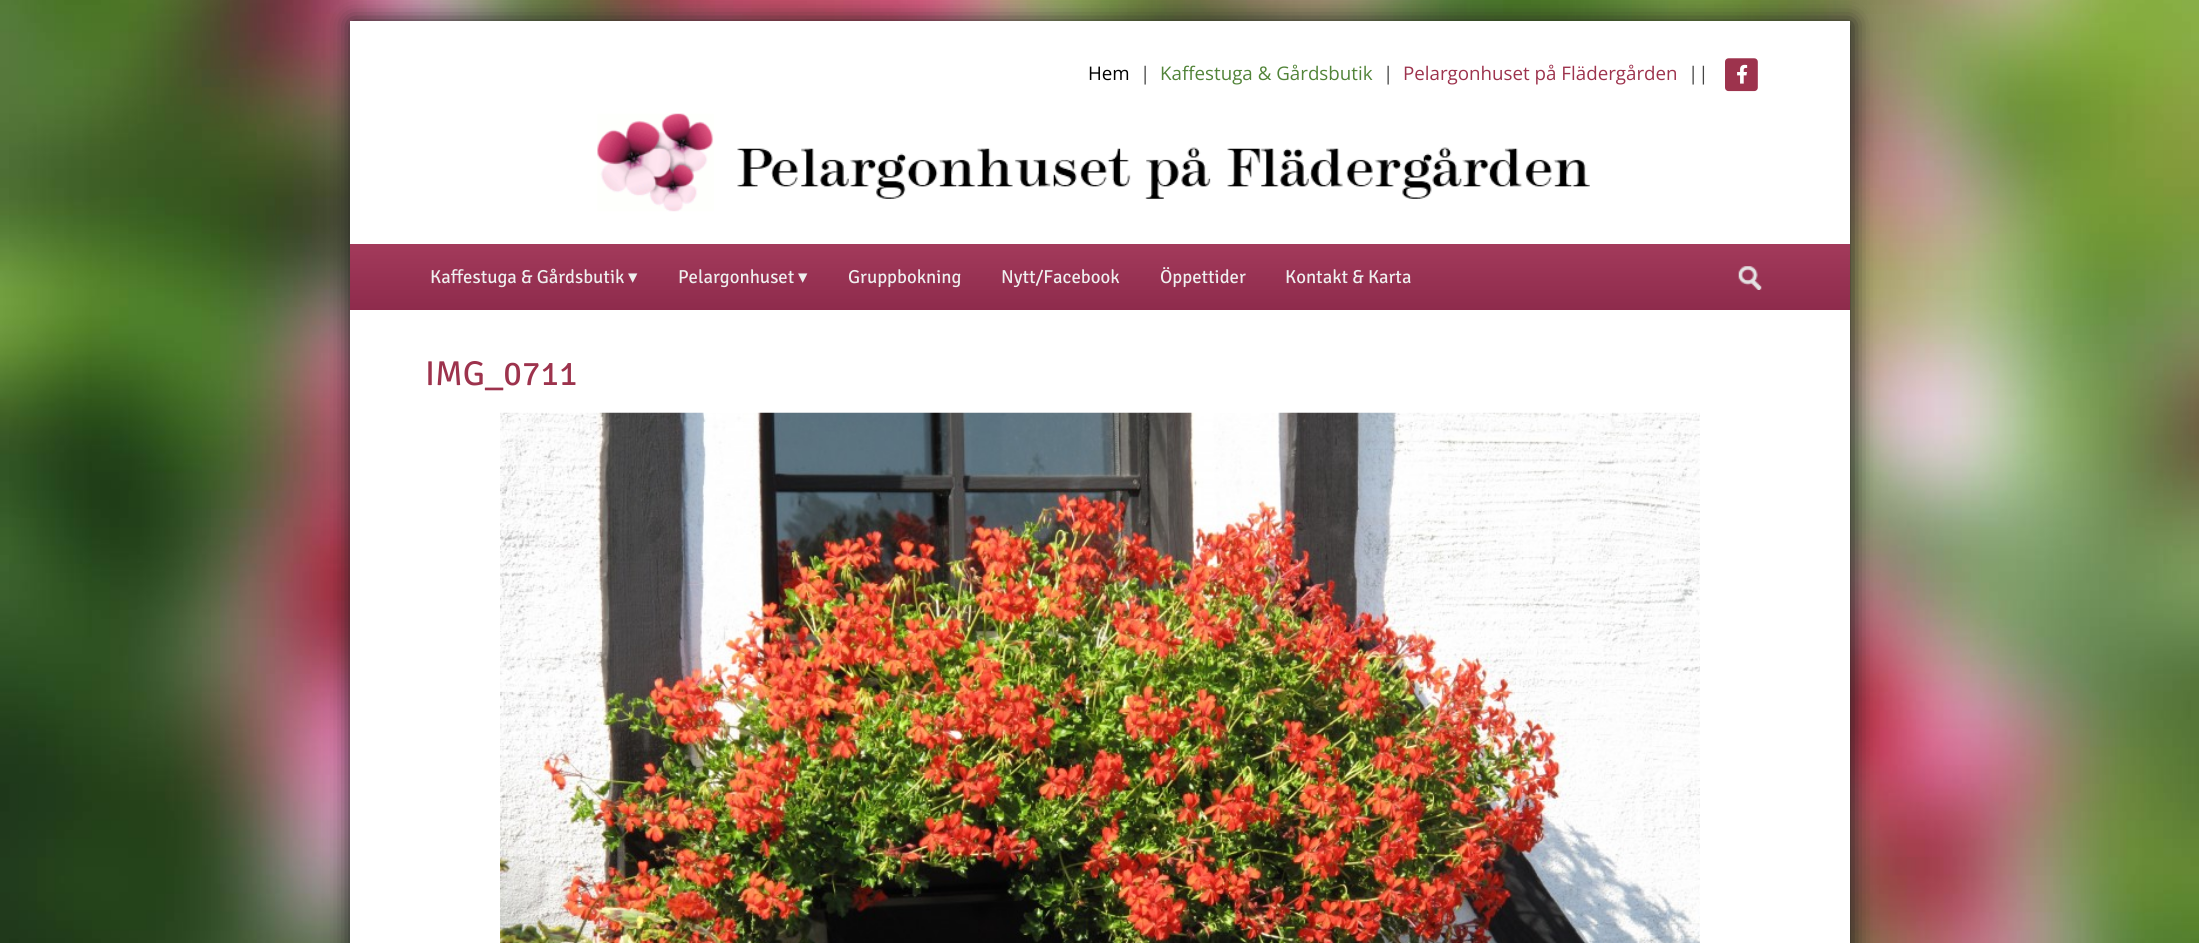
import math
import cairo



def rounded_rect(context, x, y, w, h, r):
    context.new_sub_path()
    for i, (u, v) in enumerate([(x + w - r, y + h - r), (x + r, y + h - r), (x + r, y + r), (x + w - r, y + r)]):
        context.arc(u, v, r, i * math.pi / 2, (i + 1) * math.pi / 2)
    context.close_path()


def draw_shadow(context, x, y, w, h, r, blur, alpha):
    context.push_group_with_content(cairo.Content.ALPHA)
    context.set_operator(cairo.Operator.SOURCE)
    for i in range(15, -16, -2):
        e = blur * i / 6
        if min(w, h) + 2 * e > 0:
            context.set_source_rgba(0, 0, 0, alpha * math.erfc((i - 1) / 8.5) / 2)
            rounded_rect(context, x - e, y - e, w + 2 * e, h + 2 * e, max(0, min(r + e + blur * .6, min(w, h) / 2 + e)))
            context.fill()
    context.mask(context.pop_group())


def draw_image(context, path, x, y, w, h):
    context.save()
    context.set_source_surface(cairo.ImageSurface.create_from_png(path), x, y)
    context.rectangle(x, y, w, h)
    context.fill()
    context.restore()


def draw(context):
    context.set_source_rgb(1, 1, 1)
    context.paint()
    draw_image(context, "images/1.png", 0, 0, 2199, 943)
    context.set_source_rgb(34 / 255, 34 / 255, 34 / 255)
    draw_shadow(context, 350, 21, 1503, 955, 0, 11, 1)
    context.set_source_rgb(1, 1, 1)
    context.rectangle(350, 21, 1500, 922)
    context.fill()
    draw_image(context, "images/2.png", 1725, 58, 33, 34)
    draw_image(context, "images/3.png", 1737, 64, 11, 20)
    draw_image(context, "images/4.png", 597, 113, 117, 99)
    draw_image(context, "images/5.png", 737, 147, 853, 52)
    gradient = cairo.LinearGradient(1100, 244, 1100, 310)
    gradient.add_color_stop_rgba(0, 163 / 255, 58 / 255, 91 / 255, 1)
    gradient.add_color_stop_rgba(1, 142 / 255, 43 / 255, 76 / 255, 1)
    context.set_source(gradient)
    context.rectangle(350, 244, 1500, 66)
    context.fill()
    draw_image(context, "images/6.png", 1738, 266, 24, 24)
    draw_image(context, "images/7.png", 500, 412, 1200, 531)
    context.select_font_face("Open Sans")
    context.set_font_size(18.75)
    context.set_source_rgb(0, 0, 0)
    context.move_to(1088, 80)
    context.show_text("Hem")
    context.set_source_rgb(68 / 255, 68 / 255, 68 / 255)
    context.move_to(1140, 80)
    context.show_text("|")
    context.set_source_rgb(82 / 255, 132 / 255, 57 / 255)
    context.move_to(1160, 80)
    context.show_text("Kaffestuga & Gårdsbutik")
    context.set_source_rgb(68 / 255, 68 / 255, 68 / 255)
    context.move_to(1383, 80)
    context.show_text("|")
    context.set_source_rgb(157 / 255, 51 / 255, 77 / 255)
    context.move_to(1403, 80)
    context.show_text("Pelargonhuset på Flädergården")
    context.set_source_rgb(68 / 255, 68 / 255, 68 / 255)
    context.move_to(1688, 80)
    context.show_text("||")
    context.select_font_face("Signika Negative")
    context.set_source_rgb(239 / 255, 239 / 255, 239 / 255)
    context.move_to(430, 283)
    context.show_text("Kaffestuga & Gårdsbutik")
    context.select_font_face("DejaVu Sans")
    context.move_to(628, 283)
    context.show_text("▾")
    context.select_font_face("Signika Negative")
    context.move_to(678, 283)
    context.show_text("Pelargonhuset")
    context.select_font_face("DejaVu Sans")
    context.move_to(798, 283)
    context.show_text("▾")
    context.select_font_face("Signika Negative")
    context.move_to(848, 283)
    context.show_text("Gruppbokning")
    context.move_to(1001, 283)
    context.show_text("Nytt/Facebook")
    context.move_to(1160, 283)
    context.show_text("Öppettider")
    context.move_to(1285, 283)
    context.show_text("Kontakt & Karta")
    context.set_font_size(34.5)
    context.set_source_rgb(157 / 255, 51 / 255, 77 / 255)
    context.move_to(425, 385)
    context.show_text("IMG_0711")


surface = cairo.ImageSurface(cairo.Format.RGB24, 2199, 943)
context = cairo.Context(surface)
options = cairo.FontOptions()
options.set_hint_metrics(cairo.HintMetrics.OFF)
options.set_hint_style(cairo.HintStyle.NONE)
context.set_font_options(options)
context.set_miter_limit(4)
draw(context)
surface.write_to_png("out.png")
